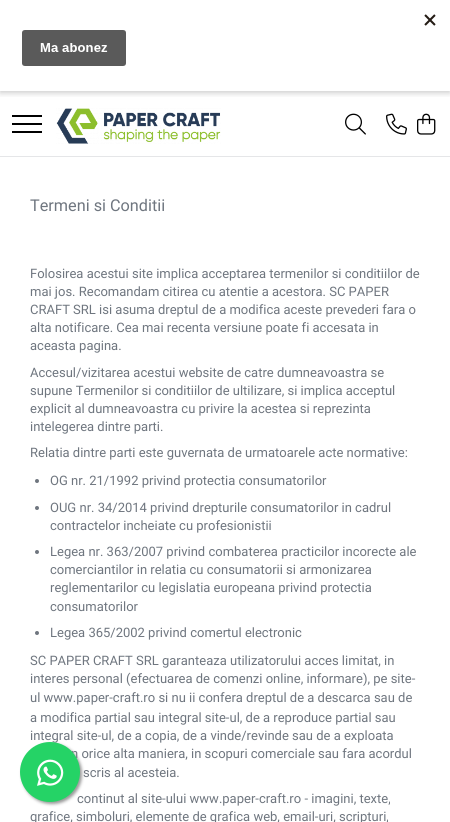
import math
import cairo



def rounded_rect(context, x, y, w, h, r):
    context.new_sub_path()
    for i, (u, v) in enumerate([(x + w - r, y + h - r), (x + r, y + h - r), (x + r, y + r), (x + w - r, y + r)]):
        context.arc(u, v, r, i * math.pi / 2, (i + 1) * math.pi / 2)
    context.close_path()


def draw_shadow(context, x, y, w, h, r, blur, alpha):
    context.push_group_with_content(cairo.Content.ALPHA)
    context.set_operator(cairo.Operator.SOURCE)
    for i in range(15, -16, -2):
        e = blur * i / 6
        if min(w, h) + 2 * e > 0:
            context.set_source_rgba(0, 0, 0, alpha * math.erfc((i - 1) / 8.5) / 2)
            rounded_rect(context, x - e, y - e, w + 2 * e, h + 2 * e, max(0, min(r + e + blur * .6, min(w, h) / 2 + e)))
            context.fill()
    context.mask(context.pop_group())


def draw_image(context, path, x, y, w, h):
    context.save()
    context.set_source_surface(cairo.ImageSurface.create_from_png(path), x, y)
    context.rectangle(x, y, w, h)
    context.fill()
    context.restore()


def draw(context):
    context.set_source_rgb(1, 1, 1)
    context.paint()
    context.save()
    context.rectangle(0, 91, 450, 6)
    context.clip()
    context.set_source_rgb(0, 0, 0)
    draw_shadow(context, 0, 3, 450, 90, 0, 3, 0.2)
    context.restore()
    draw_image(context, "images/1.png", 0, 14, 450, 77)
    context.set_source_rgb(229 / 255, 230 / 255, 232 / 255)
    context.rectangle(0, 156, 450, 1)
    context.fill()
    context.set_source_rgb(0, 0, 0)
    context.rectangle(12, 123, 30, 2)
    context.fill()
    context.rectangle(12, 115, 30, 2)
    context.fill()
    context.rectangle(12, 131, 30, 2)
    context.fill()
    draw_image(context, "images/2.png", 56, 108, 165, 36)
    draw_image(context, "images/3.png", 345, 113, 21, 22)
    draw_image(context, "images/4.png", 386, 113, 21, 22)
    draw_image(context, "images/5.png", 417, 113, 19, 22)
    context.set_source_rgb(111 / 255, 118 / 255, 127 / 255)
    context.arc(37, 481, 2, 0, 2 * math.pi)
    context.fill()
    context.arc(37, 508, 2, 0, 2 * math.pi)
    context.fill()
    context.arc(37, 552, 2, 0, 2 * math.pi)
    context.fill()
    context.arc(37, 633, 2, 0, 2 * math.pi)
    context.fill()
    context.set_source_rgb(153 / 255, 153 / 255, 153 / 255)
    draw_shadow(context, 22, 744, 60, 60, 30, 1.5, 1)
    context.select_font_face("Roboto")
    context.set_font_size(16.25)
    context.set_source_rgb(111 / 255, 118 / 255, 127 / 255)
    context.move_to(30, 211)
    context.show_text("Termeni si Conditii")
    context.set_font_size(13)
    context.move_to(30, 278)
    context.show_text("Folosirea acestui site implica acceptarea termenilor si conditiilor de")
    context.move_to(30, 296)
    context.show_text("mai jos. Recomandam citirea cu atentie a acestora. SC PAPER")
    context.move_to(30, 314)
    context.show_text("CRAFT SRL isi asuma dreptul de a modifica aceste prevederi fara o")
    context.move_to(30, 332)
    context.show_text("alta notificare. Cea mai recenta versiune poate fi accesata in")
    context.move_to(30, 350)
    context.show_text("aceasta pagina.")
    context.move_to(30, 377)
    context.show_text("Accesul/vizitarea acestui website de catre dumneavoastra se")
    context.move_to(30, 395)
    context.show_text("supune Termenilor si conditiilor de ultilizare, si implica acceptul")
    context.move_to(30, 413)
    context.show_text("explicit al dumneavoastra cu privire la acestea si reprezinta")
    context.move_to(30, 431)
    context.show_text("intelegerea dintre parti.")
    context.move_to(30, 457)
    context.show_text("Relatia dintre parti este guvernata de urmatoarele acte normative:")
    context.move_to(50, 485)
    context.show_text("OG nr. 21/1992 privind protectia consumatorilor")
    context.move_to(50, 512)
    context.show_text("OUG nr. 34/2014 privind drepturile consumatorilor in cadrul")
    context.move_to(50, 530)
    context.show_text("contractelor incheiate cu profesionistii")
    context.move_to(50, 556)
    context.show_text("Legea nr. 363/2007 privind combaterea practicilor incorecte ale")
    context.move_to(50, 574)
    context.show_text("comerciantilor in relatia cu consumatorii si armonizarea")
    context.move_to(50, 592)
    context.show_text("reglementarilor cu legislatia europeana privind protectia")
    context.move_to(50, 611)
    context.show_text("consumatorilor")
    context.move_to(50, 637)
    context.show_text("Legea 365/2002 privind comertul electronic")
    context.move_to(30, 665)
    context.show_text("SC PAPER CRAFT SRL garanteaza utilizatorului acces limitat, in")
    context.move_to(30, 683)
    context.show_text("interes personal (efectuarea de comenzi online, informare), pe site-")
    context.move_to(30, 702)
    context.show_text("ul www.paper-craft.ro si nu ii confera dreptul de a descarca sau de")
    context.move_to(30, 722)
    context.show_text("a modifica partial sau integral site-ul, de a reproduce partial sau")
    context.move_to(30, 740)
    context.show_text("integral site-ul, de a copia, de a vinde/revinde sau de a exploata")
    context.move_to(71, 758)
    context.show_text("n orice alta maniera, in scopuri comerciale sau fara acordul")
    context.move_to(83, 777)
    context.show_text("scris al acesteia.")
    context.move_to(77, 803)
    context.show_text("continut al site-ului www.paper-craft.ro - imagini, texte,")
    context.move_to(30, 821)
    context.show_text("grafice, simboluri, elemente de grafica web, email-uri, scripturi,")
    context.set_source_rgb(37 / 255, 211 / 255, 102 / 255)
    context.new_path()
    context.arc(50, 772, 30, 0, 2 * math.pi)
    context.fill()
    draw_image(context, "images/6.png", 37, 759, 27, 27)


surface = cairo.ImageSurface(cairo.Format.RGB24, 450, 822)
context = cairo.Context(surface)
options = cairo.FontOptions()
options.set_hint_metrics(cairo.HintMetrics.OFF)
options.set_hint_style(cairo.HintStyle.NONE)
context.set_font_options(options)
context.set_miter_limit(4)
draw(context)
surface.write_to_png("out.png")
